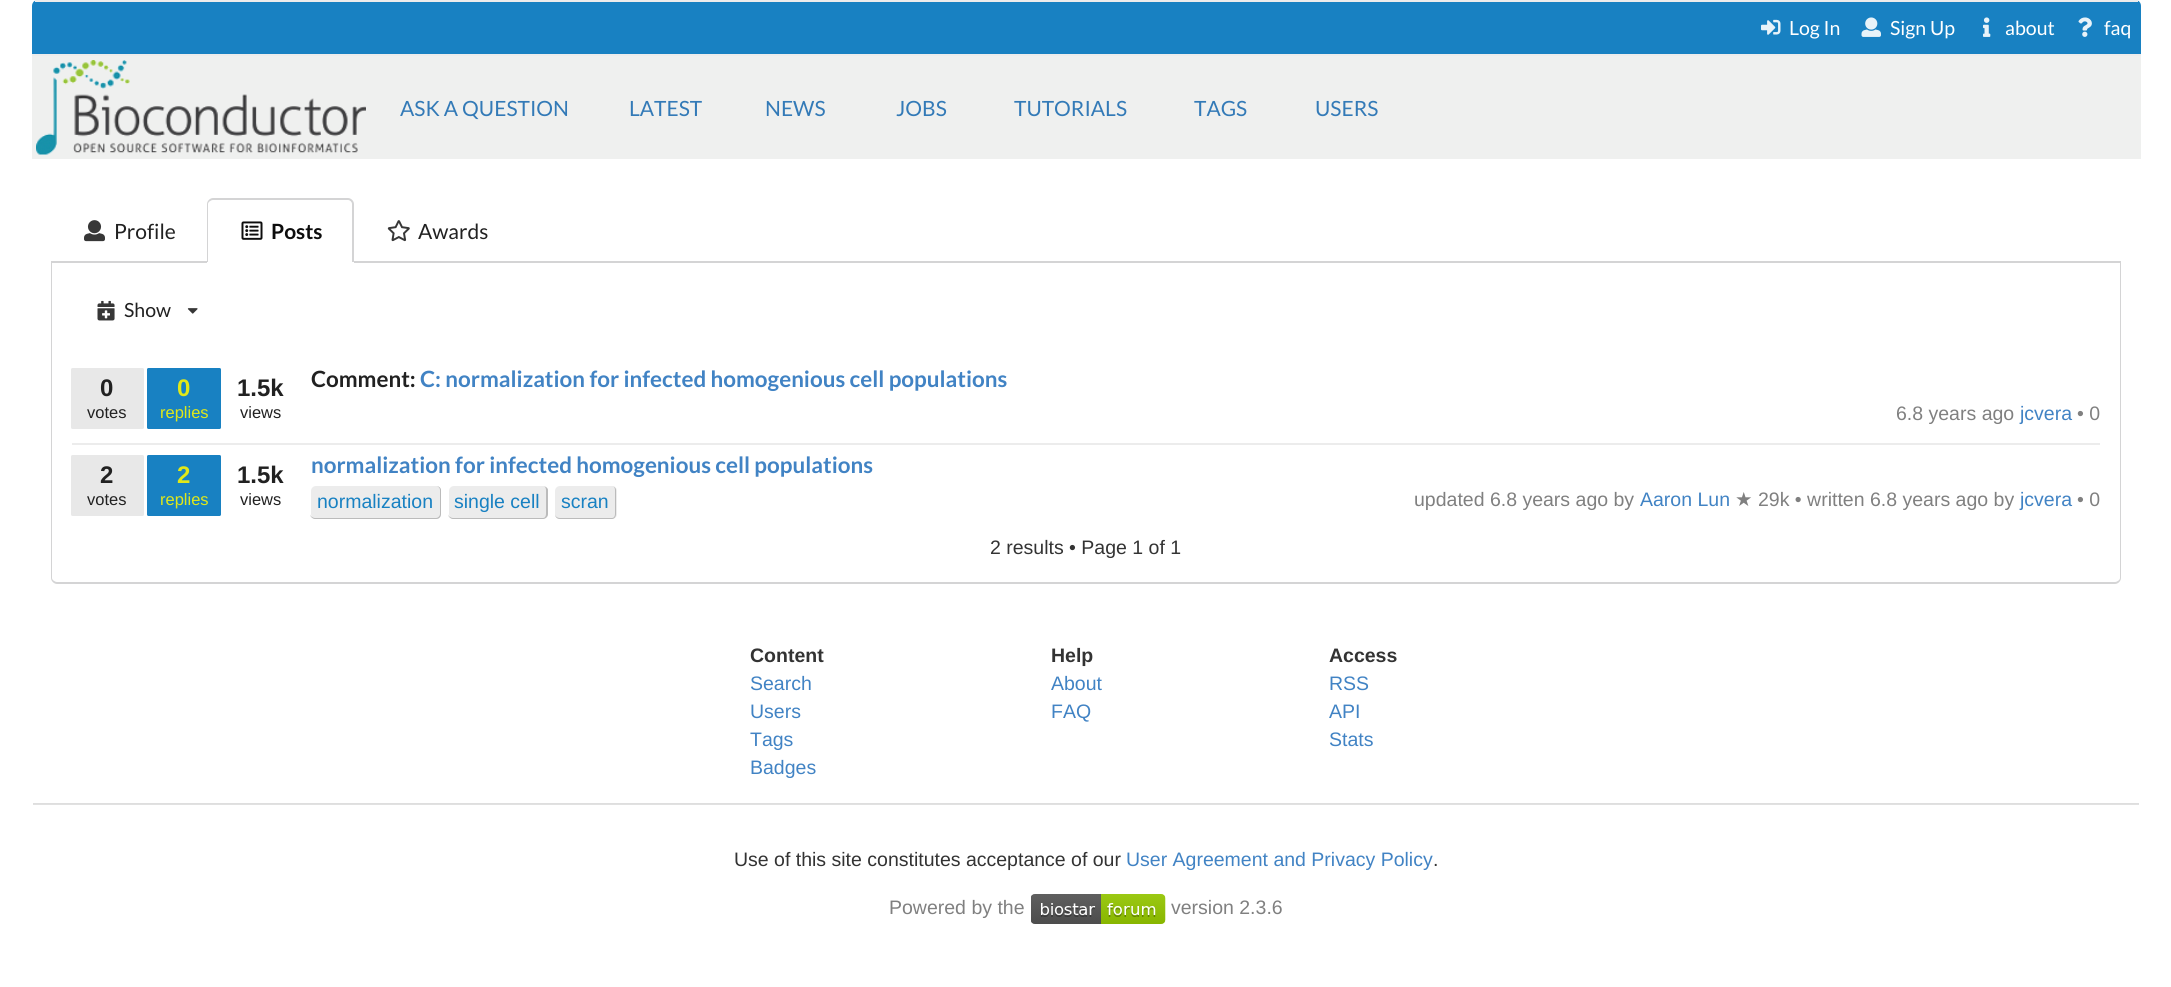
import math
import cairo



def rounded_rect(context, x, y, w, h, r):
    context.new_sub_path()
    for i, (u, v) in enumerate([(x + w - r, y + h - r), (x + r, y + h - r), (x + r, y + r), (x + w - r, y + r)]):
        context.arc(u, v, r, i * math.pi / 2, (i + 1) * math.pi / 2)
    context.close_path()


def draw_image(context, path, x, y, w, h):
    context.save()
    context.set_source_surface(cairo.ImageSurface.create_from_png(path), x, y)
    context.rectangle(x, y, w, h)
    context.fill()
    context.restore()


def draw(context):
    context.set_source_rgb(1, 1, 1)
    context.paint()
    context.set_source_rgb(24 / 255, 129 / 255, 194 / 255)
    context.new_path()
    context.move_to(38, 0)
    context.line_to(2135, 0)
    context.curve_to(2138.5, 0, 2141, 2.5, 2141, 6)
    context.line_to(2141, 56)
    context.line_to(32, 56)
    context.line_to(32, 6)
    context.curve_to(32, 2.5, 34.5, 0, 38, 0)
    context.close_path()
    context.fill()
    context.set_source_rgb(236 / 255, 236 / 255, 236 / 255)
    context.rectangle(35, 0, 2103, 2)
    context.fill()
    context.rectangle(32, 54, 2109, 2)
    context.fill()
    draw_image(context, "images/1.png", 1761, 19, 20, 16)
    draw_image(context, "images/2.png", 1861, 17, 20, 20)
    draw_image(context, "images/3.png", 1983, 17, 8, 20)
    draw_image(context, "images/4.png", 2078, 17, 14, 20)
    context.set_source_rgb(239 / 255, 240 / 255, 239 / 255)
    context.rectangle(32, 56, 2109, 103)
    context.fill()
    draw_image(context, "images/5.png", 36, 60, 330, 95)
    context.set_source_rgb(212 / 255, 212 / 255, 213 / 255)
    context.rectangle(51, 261, 2070, 2)
    context.fill()
    draw_image(context, "images/6.png", 84, 220, 21, 22)
    context.set_source_rgb(1, 1, 1)
    context.new_path()
    context.move_to(213, 198)
    context.line_to(348, 198)
    context.curve_to(351.5, 198, 354, 200.5, 354, 204)
    context.line_to(354, 263)
    context.line_to(207, 263)
    context.line_to(207, 204)
    context.curve_to(207, 200.5, 209.5, 198, 213, 198)
    context.close_path()
    context.fill()
    context.set_source_rgb(212 / 255, 212 / 255, 213 / 255)
    context.set_fill_rule(cairo.FillRule.EVEN_ODD)
    context.new_path()
    context.move_to(213, 198)
    context.line_to(348, 198)
    context.curve_to(351, 198, 354, 201, 354, 204)
    context.line_to(354, 262)
    context.line_to(207, 262)
    context.line_to(207, 204)
    context.curve_to(207, 201, 210, 198, 213, 198)
    context.close_path()
    context.move_to(213, 200)
    context.line_to(348, 200)
    context.curve_to(350, 200, 352, 202, 352, 204)
    context.line_to(352, 262)
    context.line_to(208, 262)
    context.line_to(208, 204)
    context.curve_to(208, 202, 211, 200, 213, 200)
    context.close_path()
    context.fill()
    draw_image(context, "images/7.png", 241, 221, 22, 19)
    draw_image(context, "images/8.png", 387, 220, 23, 22)
    context.new_path()
    context.move_to(51, 262)
    context.line_to(2121, 262)
    context.line_to(2121, 578)
    context.curve_to(2121, 581, 2118, 584, 2115, 584)
    context.line_to(57, 584)
    context.curve_to(54, 584, 51, 581, 51, 578)
    context.close_path()
    context.move_to(52, 262)
    context.line_to(2120, 262)
    context.line_to(2120, 578)
    context.curve_to(2120, 580, 2117, 582, 2115, 582)
    context.line_to(57, 582)
    context.curve_to(55, 582, 52, 580, 52, 578)
    context.close_path()
    context.fill()
    draw_image(context, "images/9.png", 97, 300, 18, 21)
    draw_image(context, "images/10.png", 187, 308, 11, 6)
    context.set_source_rgb(232 / 255, 232 / 255, 232 / 255)
    rounded_rect(context, 71, 368, 73, 61, 1.5)
    context.fill()
    context.set_source_rgb(24 / 255, 129 / 255, 194 / 255)
    rounded_rect(context, 147, 368, 74, 61, 1.5)
    context.fill()
    context.set_source_rgb(236 / 255, 236 / 255, 236 / 255)
    context.rectangle(72, 443, 2028, 2)
    context.fill()
    context.set_source_rgb(232 / 255, 232 / 255, 232 / 255)
    rounded_rect(context, 71, 455, 73, 61, 1.5)
    context.fill()
    context.set_source_rgb(24 / 255, 129 / 255, 194 / 255)
    rounded_rect(context, 147, 455, 74, 61, 1.5)
    context.fill()
    context.set_source_rgb(236 / 255, 236 / 255, 236 / 255)
    rounded_rect(context, 311, 486, 130, 33, 5)
    context.fill()
    context.set_source_rgb(187 / 255, 187 / 255, 187 / 255)
    context.new_path()
    context.move_to(315, 486)
    context.line_to(436, 486)
    context.curve_to(439, 486, 441, 488, 441, 490)
    context.line_to(441, 514)
    context.curve_to(441, 517, 439, 519, 436, 519)
    context.line_to(315, 519)
    context.curve_to(313, 519, 310, 517, 310, 514)
    context.line_to(310, 490)
    context.curve_to(310, 488, 313, 486, 315, 486)
    context.close_path()
    context.move_to(315, 486)
    context.line_to(436, 486)
    context.curve_to(438, 486, 440, 488, 440, 490)
    context.line_to(440, 514)
    context.curve_to(440, 516, 438, 518, 436, 518)
    context.line_to(315, 518)
    context.curve_to(313, 518, 310, 516, 310, 514)
    context.line_to(310, 490)
    context.curve_to(310, 488, 313, 486, 315, 486)
    context.close_path()
    context.fill()
    context.set_source_rgb(236 / 255, 236 / 255, 236 / 255)
    rounded_rect(context, 449, 486, 99, 33, 5)
    context.fill()
    context.set_source_rgb(187 / 255, 187 / 255, 187 / 255)
    context.new_path()
    context.move_to(453, 486)
    context.line_to(543, 486)
    context.curve_to(545, 486, 548, 488, 548, 490)
    context.line_to(548, 514)
    context.curve_to(548, 517, 545, 519, 543, 519)
    context.line_to(453, 519)
    context.curve_to(451, 519, 448, 517, 448, 514)
    context.line_to(448, 490)
    context.curve_to(448, 488, 451, 486, 453, 486)
    context.close_path()
    context.move_to(453, 486)
    context.line_to(543, 486)
    context.curve_to(545, 486, 546, 488, 546, 490)
    context.line_to(546, 514)
    context.curve_to(546, 516, 545, 518, 543, 518)
    context.line_to(453, 518)
    context.curve_to(451, 518, 448, 516, 448, 514)
    context.line_to(448, 490)
    context.curve_to(448, 488, 451, 486, 453, 486)
    context.close_path()
    context.fill()
    context.set_source_rgb(236 / 255, 236 / 255, 236 / 255)
    rounded_rect(context, 555, 486, 62, 33, 5)
    context.fill()
    context.set_source_rgb(187 / 255, 187 / 255, 187 / 255)
    context.new_path()
    context.move_to(560, 486)
    context.line_to(612, 486)
    context.curve_to(614, 486, 616, 488, 616, 490)
    context.line_to(616, 514)
    context.curve_to(616, 517, 614, 519, 612, 519)
    context.line_to(560, 519)
    context.curve_to(557, 519, 555, 517, 555, 514)
    context.line_to(555, 490)
    context.curve_to(555, 488, 557, 486, 560, 486)
    context.close_path()
    context.move_to(560, 486)
    context.line_to(612, 486)
    context.curve_to(614, 486, 615, 488, 615, 490)
    context.line_to(615, 514)
    context.curve_to(615, 516, 614, 518, 612, 518)
    context.line_to(560, 518)
    context.curve_to(557, 518, 555, 516, 555, 514)
    context.line_to(555, 490)
    context.curve_to(555, 488, 557, 486, 560, 486)
    context.close_path()
    context.fill()
    context.set_source_rgb(222 / 255, 222 / 255, 222 / 255)
    context.rectangle(33, 803, 2106, 1)
    context.fill()
    context.set_source_rgb(225 / 255, 225 / 255, 225 / 255)
    context.rectangle(33, 804, 2106, 1)
    context.fill()
    draw_image(context, "images/11.png", 1031, 894, 135, 30)
    context.select_font_face("Lato")
    context.set_font_size(19.5)
    context.set_source_rgb(1, 1, 1)
    context.move_to(1789, 35)
    context.show_text("Log In")
    context.move_to(1890, 35)
    context.show_text("Sign Up")
    context.move_to(2005, 35)
    context.show_text("about")
    context.move_to(2104, 35)
    context.show_text("faq")
    context.set_font_size(21)
    context.set_source_rgb(51 / 255, 122 / 255, 183 / 255)
    context.move_to(400, 116)
    context.show_text("ASK A QUESTION")
    context.move_to(629, 116)
    context.show_text("LATEST")
    context.move_to(765, 116)
    context.show_text("NEWS")
    context.move_to(896, 116)
    context.show_text("JOBS")
    context.move_to(1014, 116)
    context.show_text("TUTORIALS")
    context.move_to(1194, 116)
    context.show_text("TAGS")
    context.move_to(1315, 116)
    context.show_text("USERS")
    context.set_source_rgb(33 / 255, 33 / 255, 33 / 255)
    context.move_to(114, 239)
    context.show_text("Profile")
    context.select_font_face("Lato", cairo.FontSlant.NORMAL, cairo.FontWeight.BOLD)
    context.set_source_rgb(13 / 255, 13 / 255, 13 / 255)
    context.move_to(271, 239)
    context.show_text("Posts")
    context.select_font_face("Lato")
    context.set_source_rgb(33 / 255, 33 / 255, 33 / 255)
    context.move_to(418, 239)
    context.show_text("Awards")
    context.set_font_size(19.5)
    context.move_to(124, 317)
    context.show_text("Show")
    context.select_font_face("Liberation Sans", cairo.FontSlant.NORMAL, cairo.FontWeight.BOLD)
    context.set_font_size(24)
    context.move_to(100, 396)
    context.show_text("0")
    context.select_font_face("Liberation Sans")
    context.set_font_size(16.5)
    context.move_to(87, 418)
    context.show_text("votes")
    context.select_font_face("Liberation Sans", cairo.FontSlant.NORMAL, cairo.FontWeight.BOLD)
    context.set_font_size(24)
    context.set_source_rgb(225 / 255, 232 / 255, 24 / 255)
    context.move_to(177, 396)
    context.show_text("0")
    context.select_font_face("Liberation Sans")
    context.set_font_size(16.5)
    context.move_to(160, 418)
    context.show_text("replies")
    context.select_font_face("Liberation Sans", cairo.FontSlant.NORMAL, cairo.FontWeight.BOLD)
    context.set_font_size(24)
    context.set_source_rgb(33 / 255, 33 / 255, 33 / 255)
    context.move_to(237, 396)
    context.show_text("1.5k")
    context.select_font_face("Liberation Sans")
    context.set_font_size(16.5)
    context.move_to(240, 418)
    context.show_text("views")
    context.select_font_face("Lato", cairo.FontSlant.NORMAL, cairo.FontWeight.BOLD)
    context.set_font_size(22.4)
    context.move_to(311, 387)
    context.show_text("Comment:")
    context.set_source_rgb(65 / 255, 131 / 255, 196 / 255)
    context.move_to(420, 387)
    context.show_text("C: normalization for infected homogenious cell populations")
    context.select_font_face("Liberation Sans")
    context.set_font_size(19.5)
    context.set_source_rgb(128 / 255, 128 / 255, 128 / 255)
    context.move_to(1896, 420)
    context.show_text("6.8 years ago")
    context.set_source_rgb(65 / 255, 131 / 255, 196 / 255)
    context.move_to(2020, 420)
    context.show_text("jcvera")
    context.set_source_rgb(128 / 255, 128 / 255, 128 / 255)
    context.move_to(2077, 420)
    context.show_text("• 0")
    context.select_font_face("Liberation Sans", cairo.FontSlant.NORMAL, cairo.FontWeight.BOLD)
    context.set_font_size(24)
    context.set_source_rgb(33 / 255, 33 / 255, 33 / 255)
    context.move_to(100, 483)
    context.show_text("2")
    context.select_font_face("Liberation Sans")
    context.set_font_size(16.5)
    context.move_to(87, 505)
    context.show_text("votes")
    context.select_font_face("Liberation Sans", cairo.FontSlant.NORMAL, cairo.FontWeight.BOLD)
    context.set_font_size(24)
    context.set_source_rgb(225 / 255, 232 / 255, 24 / 255)
    context.move_to(177, 483)
    context.show_text("2")
    context.select_font_face("Liberation Sans")
    context.set_font_size(16.5)
    context.move_to(160, 505)
    context.show_text("replies")
    context.select_font_face("Liberation Sans", cairo.FontSlant.NORMAL, cairo.FontWeight.BOLD)
    context.set_font_size(24)
    context.set_source_rgb(33 / 255, 33 / 255, 33 / 255)
    context.move_to(237, 483)
    context.show_text("1.5k")
    context.select_font_face("Liberation Sans")
    context.set_font_size(16.5)
    context.move_to(240, 505)
    context.show_text("views")
    context.select_font_face("Lato", cairo.FontSlant.NORMAL, cairo.FontWeight.BOLD)
    context.set_font_size(22.4)
    context.set_source_rgb(65 / 255, 131 / 255, 196 / 255)
    context.move_to(311, 473)
    context.show_text("normalization for infected homogenious cell populations")
    context.select_font_face("Liberation Sans")
    context.set_font_size(19.5)
    context.set_source_rgb(24 / 255, 129 / 255, 194 / 255)
    context.move_to(317, 508)
    context.show_text("normalization")
    context.move_to(454, 508)
    context.show_text("single cell")
    context.move_to(561, 508)
    context.show_text("scran")
    context.set_source_rgb(128 / 255, 128 / 255, 128 / 255)
    context.move_to(1414, 506)
    context.show_text("updated 6.8 years ago by")
    context.set_source_rgb(65 / 255, 131 / 255, 196 / 255)
    context.move_to(1640, 506)
    context.show_text("Aaron Lun")
    context.select_font_face("DejaVu Sans")
    context.set_source_rgb(128 / 255, 128 / 255, 128 / 255)
    context.move_to(1735, 506)
    context.show_text("★")
    context.select_font_face("Liberation Sans")
    context.move_to(1758, 506)
    context.show_text("29k • written 6.8 years ago by")
    context.set_source_rgb(65 / 255, 131 / 255, 196 / 255)
    context.move_to(2020, 506)
    context.show_text("jcvera")
    context.set_source_rgb(128 / 255, 128 / 255, 128 / 255)
    context.move_to(2077, 506)
    context.show_text("• 0")
    context.set_source_rgb(51 / 255, 51 / 255, 51 / 255)
    context.move_to(990, 554)
    context.show_text("2 results • Page 1 of 1")
    context.select_font_face("Liberation Sans", cairo.FontSlant.NORMAL, cairo.FontWeight.BOLD)
    context.move_to(750, 662)
    context.show_text("Content")
    context.select_font_face("Liberation Sans")
    context.set_source_rgb(65 / 255, 131 / 255, 196 / 255)
    context.move_to(750, 690)
    context.show_text("Search")
    context.move_to(750, 718)
    context.show_text("Users")
    context.move_to(750, 746)
    context.show_text("Tags")
    context.move_to(750, 774)
    context.show_text("Badges")
    context.select_font_face("Liberation Sans", cairo.FontSlant.NORMAL, cairo.FontWeight.BOLD)
    context.set_source_rgb(51 / 255, 51 / 255, 51 / 255)
    context.move_to(1051, 662)
    context.show_text("Help")
    context.select_font_face("Liberation Sans")
    context.set_source_rgb(65 / 255, 131 / 255, 196 / 255)
    context.move_to(1051, 690)
    context.show_text("About")
    context.move_to(1051, 718)
    context.show_text("FAQ")
    context.select_font_face("Liberation Sans", cairo.FontSlant.NORMAL, cairo.FontWeight.BOLD)
    context.set_source_rgb(51 / 255, 51 / 255, 51 / 255)
    context.move_to(1329, 662)
    context.show_text("Access")
    context.select_font_face("Liberation Sans")
    context.set_source_rgb(65 / 255, 131 / 255, 196 / 255)
    context.move_to(1329, 690)
    context.show_text("RSS")
    context.move_to(1329, 718)
    context.show_text("API")
    context.move_to(1329, 746)
    context.show_text("Stats")
    context.set_source_rgb(51 / 255, 51 / 255, 51 / 255)
    context.move_to(734, 866)
    context.show_text("Use of this site constitutes acceptance of our")
    context.set_source_rgb(65 / 255, 131 / 255, 196 / 255)
    context.move_to(1126, 866)
    context.show_text("User Agreement and Privacy Policy")
    context.set_source_rgb(51 / 255, 51 / 255, 51 / 255)
    context.move_to(1433, 866)
    context.show_text(".")
    context.set_source_rgb(128 / 255, 128 / 255, 128 / 255)
    context.move_to(889, 914)
    context.show_text("Powered by the")
    context.move_to(1171, 914)
    context.show_text("version 2.3.6")


surface = cairo.ImageSurface(cairo.Format.RGB24, 2171, 987)
context = cairo.Context(surface)
options = cairo.FontOptions()
options.set_hint_metrics(cairo.HintMetrics.OFF)
options.set_hint_style(cairo.HintStyle.NONE)
context.set_font_options(options)
context.set_miter_limit(4)
draw(context)
surface.write_to_png("out.png")
